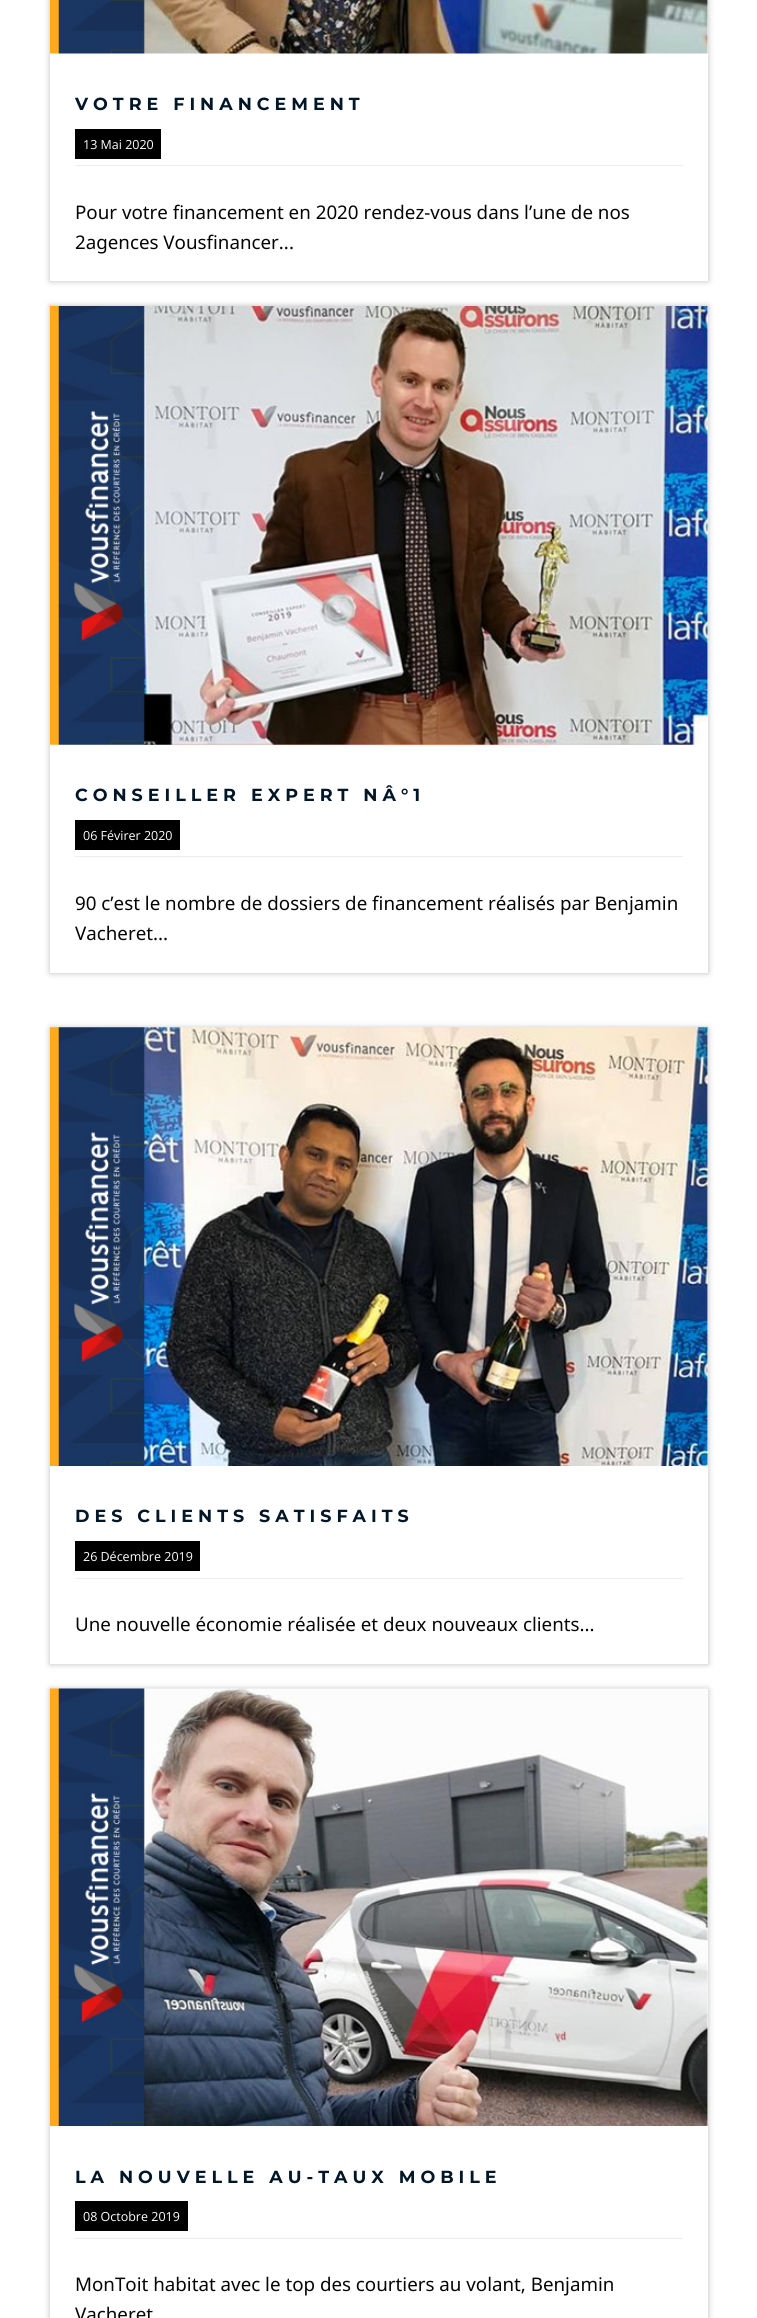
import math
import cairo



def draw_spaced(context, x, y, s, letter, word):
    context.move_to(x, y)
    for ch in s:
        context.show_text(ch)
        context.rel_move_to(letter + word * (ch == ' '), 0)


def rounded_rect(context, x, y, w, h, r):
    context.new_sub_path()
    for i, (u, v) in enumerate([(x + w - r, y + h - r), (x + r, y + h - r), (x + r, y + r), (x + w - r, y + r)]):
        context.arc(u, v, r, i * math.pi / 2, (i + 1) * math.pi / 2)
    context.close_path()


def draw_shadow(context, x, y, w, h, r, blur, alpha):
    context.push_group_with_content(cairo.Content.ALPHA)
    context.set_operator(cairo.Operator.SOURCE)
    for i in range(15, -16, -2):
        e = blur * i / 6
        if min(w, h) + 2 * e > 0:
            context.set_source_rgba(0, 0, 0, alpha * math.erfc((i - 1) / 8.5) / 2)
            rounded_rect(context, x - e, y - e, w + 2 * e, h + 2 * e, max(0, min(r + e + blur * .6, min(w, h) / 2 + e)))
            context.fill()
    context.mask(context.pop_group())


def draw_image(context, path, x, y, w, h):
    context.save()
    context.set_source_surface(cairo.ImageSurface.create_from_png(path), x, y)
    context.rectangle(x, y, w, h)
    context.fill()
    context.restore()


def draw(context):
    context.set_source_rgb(1, 1, 1)
    context.paint()
    context.save()
    context.set_fill_rule(cairo.FillRule.EVEN_ODD)
    context.new_path()
    context.move_to(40, 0)
    context.line_to(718, 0)
    context.line_to(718, 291)
    context.line_to(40, 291)
    context.close_path()
    context.move_to(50, -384)
    context.line_to(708, -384)
    context.line_to(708, 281)
    context.line_to(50, 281)
    context.close_path()
    context.clip()
    context.set_source_rgb(119 / 255, 119 / 255, 119 / 255)
    draw_shadow(context, 50, -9, 658, 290, 0, 3, 0.5)
    context.restore()
    draw_image(context, "images/1.png", 50, 0, 658, 54)
    context.set_source_rgb(0, 0, 0)
    context.rectangle(75, 129, 86, 30)
    context.fill()
    context.set_source_rgb(237 / 255, 237 / 255, 237 / 255)
    context.rectangle(75, 165, 608, 1)
    context.fill()
    context.save()
    context.set_fill_rule(cairo.FillRule.EVEN_ODD)
    context.new_path()
    context.move_to(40, 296)
    context.line_to(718, 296)
    context.line_to(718, 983)
    context.line_to(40, 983)
    context.close_path()
    context.move_to(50, 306)
    context.line_to(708, 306)
    context.line_to(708, 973)
    context.line_to(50, 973)
    context.close_path()
    context.clip()
    context.set_source_rgb(119 / 255, 119 / 255, 119 / 255)
    draw_shadow(context, 50, 306, 658, 667, 0, 3, 0.5)
    context.restore()
    draw_image(context, "images/2.png", 50, 306, 658, 439)
    context.set_source_rgb(0, 0, 0)
    context.rectangle(75, 820, 105, 30)
    context.fill()
    context.set_source_rgb(237 / 255, 237 / 255, 237 / 255)
    context.rectangle(75, 856, 608, 1)
    context.fill()
    context.save()
    context.set_fill_rule(cairo.FillRule.EVEN_ODD)
    context.new_path()
    context.move_to(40, 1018)
    context.line_to(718, 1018)
    context.line_to(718, 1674)
    context.line_to(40, 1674)
    context.close_path()
    context.move_to(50, 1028)
    context.line_to(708, 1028)
    context.line_to(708, 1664)
    context.line_to(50, 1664)
    context.close_path()
    context.clip()
    context.set_source_rgb(119 / 255, 119 / 255, 119 / 255)
    draw_shadow(context, 50, 1028, 658, 636, 0, 3, 0.5)
    context.restore()
    draw_image(context, "images/3.png", 50, 1027, 658, 439)
    context.set_source_rgb(0, 0, 0)
    context.rectangle(75, 1541, 125, 30)
    context.fill()
    context.set_source_rgb(237 / 255, 237 / 255, 237 / 255)
    context.rectangle(75, 1578, 608, 1)
    context.fill()
    context.save()
    context.set_fill_rule(cairo.FillRule.EVEN_ODD)
    context.new_path()
    context.move_to(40, 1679)
    context.line_to(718, 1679)
    context.line_to(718, 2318)
    context.line_to(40, 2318)
    context.close_path()
    context.move_to(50, 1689)
    context.line_to(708, 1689)
    context.line_to(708, 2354)
    context.line_to(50, 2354)
    context.close_path()
    context.clip()
    context.set_source_rgb(119 / 255, 119 / 255, 119 / 255)
    draw_shadow(context, 50, 1689, 658, 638, 0, 3, 0.5)
    context.restore()
    draw_image(context, "images/4.png", 50, 1688, 658, 438)
    context.set_source_rgb(0, 0, 0)
    context.rectangle(75, 2201, 113, 30)
    context.fill()
    context.set_source_rgb(237 / 255, 237 / 255, 237 / 255)
    context.rectangle(75, 2238, 608, 1)
    context.fill()
    context.select_font_face("Montserrat", cairo.FontSlant.NORMAL, cairo.FontWeight.BOLD)
    context.set_font_size(17.5)
    context.set_source_rgb(1 / 255, 22 / 255, 39 / 255)
    draw_spaced(context, 75, 110, "VOTRE FINANCEMENT", 5, 0)
    context.select_font_face("Open Sans")
    context.set_font_size(12.5)
    context.set_source_rgb(1, 1, 1)
    context.move_to(83, 149)
    context.show_text("13 Mai 2020")
    context.select_font_face("Noto Sans")
    context.set_font_size(18.75)
    context.set_source_rgb(5 / 255, 5 / 255, 5 / 255)
    context.move_to(75, 219)
    context.show_text("Pour votre financement en 2020 rendez-vous dans l’une de nos")
    context.move_to(75, 249)
    context.show_text("2agences Vousfinancer...")
    context.select_font_face("Montserrat", cairo.FontSlant.NORMAL, cairo.FontWeight.BOLD)
    context.set_font_size(17.5)
    context.set_source_rgb(1 / 255, 22 / 255, 39 / 255)
    draw_spaced(context, 75, 801, "CONSEILLER EXPERT NÂ°1", 5, 0)
    context.select_font_face("Open Sans")
    context.set_font_size(12.5)
    context.set_source_rgb(1, 1, 1)
    context.move_to(83, 840)
    context.show_text("06 Févirer 2020")
    context.select_font_face("Noto Sans")
    context.set_font_size(18.75)
    context.set_source_rgb(5 / 255, 5 / 255, 5 / 255)
    context.move_to(75, 910)
    context.show_text("90 c’est le nombre de dossiers de financement réalisés par Benjamin")
    context.move_to(75, 940)
    context.show_text("Vacheret...")
    context.select_font_face("Montserrat", cairo.FontSlant.NORMAL, cairo.FontWeight.BOLD)
    context.set_font_size(17.5)
    context.set_source_rgb(1 / 255, 22 / 255, 39 / 255)
    draw_spaced(context, 75, 1522, "DES CLIENTS SATISFAITS", 5, 0)
    context.select_font_face("Open Sans")
    context.set_font_size(12.5)
    context.set_source_rgb(1, 1, 1)
    context.move_to(83, 1561)
    context.show_text("26 Décembre 2019")
    context.select_font_face("Noto Sans")
    context.set_font_size(18.75)
    context.set_source_rgb(5 / 255, 5 / 255, 5 / 255)
    context.move_to(75, 1631)
    context.show_text("Une nouvelle économie réalisée et deux nouveaux clients...")
    context.select_font_face("Montserrat", cairo.FontSlant.NORMAL, cairo.FontWeight.BOLD)
    context.set_font_size(17.5)
    context.set_source_rgb(1 / 255, 22 / 255, 39 / 255)
    draw_spaced(context, 75, 2183, "LA NOUVELLE AU-TAUX MOBILE", 5, 0)
    context.select_font_face("Open Sans")
    context.set_font_size(12.5)
    context.set_source_rgb(1, 1, 1)
    context.move_to(83, 2221)
    context.show_text("08 Octobre 2019")
    context.select_font_face("Noto Sans")
    context.set_font_size(18.75)
    context.set_source_rgb(5 / 255, 5 / 255, 5 / 255)
    context.move_to(75, 2291)
    context.show_text("MonToit habitat avec le top des courtiers au volant, Benjamin")
    context.move_to(75, 2321)
    context.show_text("Vacheret")


surface = cairo.ImageSurface(cairo.Format.RGB24, 757, 2318)
context = cairo.Context(surface)
options = cairo.FontOptions()
options.set_hint_metrics(cairo.HintMetrics.OFF)
options.set_hint_style(cairo.HintStyle.NONE)
context.set_font_options(options)
context.set_miter_limit(4)
draw(context)
surface.write_to_png("out.png")
